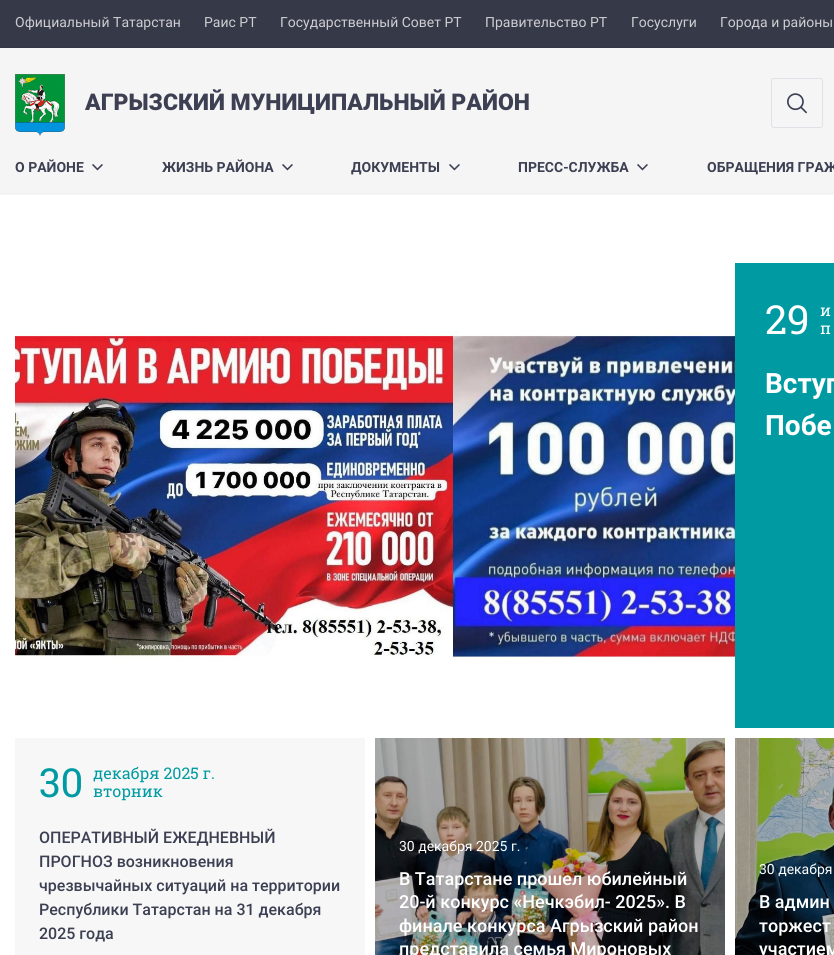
import math
import cairo



def rounded_rect(context, x, y, w, h, r):
    context.new_sub_path()
    for i, (u, v) in enumerate([(x + w - r, y + h - r), (x + r, y + h - r), (x + r, y + r), (x + w - r, y + r)]):
        context.arc(u, v, r, i * math.pi / 2, (i + 1) * math.pi / 2)
    context.close_path()


def draw_shadow(context, x, y, w, h, r, blur, alpha):
    context.push_group_with_content(cairo.Content.ALPHA)
    context.set_operator(cairo.Operator.SOURCE)
    for i in range(15, -16, -2):
        e = blur * i / 6
        if min(w, h) + 2 * e > 0:
            context.set_source_rgba(0, 0, 0, alpha * math.erfc((i - 1) / 8.5) / 2)
            rounded_rect(context, x - e, y - e, w + 2 * e, h + 2 * e, max(0, min(r + e + blur * .6, min(w, h) / 2 + e)))
            context.fill()
    context.mask(context.pop_group())


def draw_image(context, path, x, y, w, h):
    context.save()
    context.set_source_surface(cairo.ImageSurface.create_from_png(path), x, y)
    context.rectangle(x, y, w, h)
    context.fill()
    context.restore()


def draw(context):
    context.set_source_rgb(54 / 255, 58 / 255, 72 / 255)
    context.paint()
    context.set_source_rgb(1, 1, 1)
    context.rectangle(0, 193, 834, 762)
    context.fill()
    context.set_source_rgb(0, 0, 0)
    draw_shadow(context, 0, 48, 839, 145, 0, 1.5, 0.16)
    context.set_source_rgb(245 / 255, 245 / 255, 245 / 255)
    context.rectangle(0, 48, 834, 145)
    context.fill()
    draw_image(context, "images/1.png", 15, 74, 50, 62)
    rounded_rect(context, 771.5, 78.5, 51, 49, 2.5)
    context.set_source_rgb(222 / 255, 225 / 255, 230 / 255)
    context.set_line_width(1)
    context.stroke()
    draw_image(context, "images/2.png", 787, 93, 20, 21)
    draw_image(context, "images/3.png", 92, 164, 11, 7)
    draw_image(context, "images/3.png", 282, 164, 11, 7)
    draw_image(context, "images/3.png", 449, 164, 11, 7)
    draw_image(context, "images/3.png", 637, 164, 11, 7)
    draw_image(context, "images/4.png", 15, 331, 720, 329)
    context.set_source_rgb(0, 155 / 255, 162 / 255)
    context.rectangle(735, 263, 99, 465)
    context.fill()
    context.set_source_rgb(247 / 255, 247 / 255, 247 / 255)
    context.rectangle(15, 738, 350, 217)
    context.fill()
    draw_image(context, "images/5.png", 375, 738, 350, 217)
    draw_image(context, "images/6.png", 735, 738, 99, 217)
    context.select_font_face("Roboto")
    context.set_font_size(14)
    context.set_source_rgb(205 / 255, 206 / 255, 209 / 255)
    context.move_to(15, 27)
    context.show_text("Официальный Татарстан")
    context.move_to(204, 27)
    context.show_text("Раис РТ")
    context.move_to(280, 27)
    context.show_text("Государственный Совет РТ")
    context.move_to(485, 27)
    context.show_text("Правительство РТ")
    context.move_to(631, 27)
    context.show_text("Госуслуги")
    context.move_to(720, 27)
    context.show_text("Города и районы")
    context.select_font_face("Roboto Black")
    context.set_font_size(23)
    context.set_source_rgb(60 / 255, 64 / 255, 82 / 255)
    context.move_to(85, 110)
    context.show_text("АГРЫЗСКИЙ МУНИЦИПАЛЬНЫЙ РАЙОН")
    context.select_font_face("Roboto", cairo.FontSlant.NORMAL, cairo.FontWeight.BOLD)
    context.set_font_size(14)
    context.move_to(15, 172)
    context.show_text("О РАЙОНЕ")
    context.move_to(162, 172)
    context.show_text("ЖИЗНЬ РАЙОНА")
    context.move_to(351, 172)
    context.show_text("ДОКУМЕНТЫ")
    context.move_to(518, 172)
    context.show_text("ПРЕСС-СЛУЖБА")
    context.move_to(707, 172)
    context.show_text("ОБРАЩЕНИЯ ГРАЖ")
    context.select_font_face("Roboto Slab")
    context.set_font_size(40)
    context.set_source_rgb(1, 1, 1)
    context.move_to(765, 334)
    context.show_text("29")
    context.set_font_size(16)
    context.move_to(820, 316)
    context.show_text("и")
    context.move_to(820, 334)
    context.show_text("п")
    context.select_font_face("Roboto", cairo.FontSlant.NORMAL, cairo.FontWeight.BOLD)
    context.set_font_size(28)
    context.move_to(765, 393)
    context.show_text("Вступ")
    context.move_to(765, 435)
    context.show_text("Побе")
    context.select_font_face("Roboto Slab")
    context.set_font_size(40)
    context.set_source_rgb(0, 155 / 255, 162 / 255)
    context.move_to(39, 797)
    context.show_text("30")
    context.set_font_size(16)
    context.move_to(93, 779)
    context.show_text("декабря 2025 г.")
    context.move_to(93, 797)
    context.show_text("вторник")
    context.select_font_face("Roboto Medium")
    context.set_source_rgb(60 / 255, 64 / 255, 82 / 255)
    context.move_to(39, 843)
    context.show_text("ОПЕРАТИВНЫЙ ЕЖЕДНЕВНЫЙ")
    context.move_to(39, 867)
    context.show_text("ПРОГНОЗ возникновения")
    context.move_to(39, 891)
    context.show_text("чрезвычайных ситуаций на территории")
    context.move_to(39, 915)
    context.show_text("Республики Татарстан на 31 декабря")
    context.move_to(39, 939)
    context.show_text("2025 года")
    context.select_font_face("Roboto")
    context.set_font_size(14)
    context.set_source_rgb(1, 1, 1)
    context.move_to(399, 851)
    context.show_text("30 декабря 2025 г.")
    context.select_font_face("Roboto Medium")
    context.set_font_size(18)
    context.move_to(399, 885)
    context.show_text("В Татарстане прошел юбилейный")
    context.move_to(399, 908)
    context.show_text("20-й конкурс «Нечкэбил- 2025». В")
    context.move_to(399, 932)
    context.show_text("финале конкурса Агрызский район")
    context.move_to(399, 955)
    context.show_text("представила семья Мироновых")
    context.select_font_face("Roboto")
    context.set_font_size(14)
    context.move_to(759, 874)
    context.show_text("30 декабря")
    context.select_font_face("Roboto Medium")
    context.set_font_size(18)
    context.move_to(759, 908)
    context.show_text("В админ")
    context.move_to(759, 932)
    context.show_text("торжест")
    context.move_to(759, 955)
    context.show_text("участием")


surface = cairo.ImageSurface(cairo.Format.RGB24, 834, 955)
context = cairo.Context(surface)
options = cairo.FontOptions()
options.set_hint_metrics(cairo.HintMetrics.OFF)
options.set_hint_style(cairo.HintStyle.NONE)
context.set_font_options(options)
context.set_miter_limit(4)
draw(context)
surface.write_to_png("out.png")
